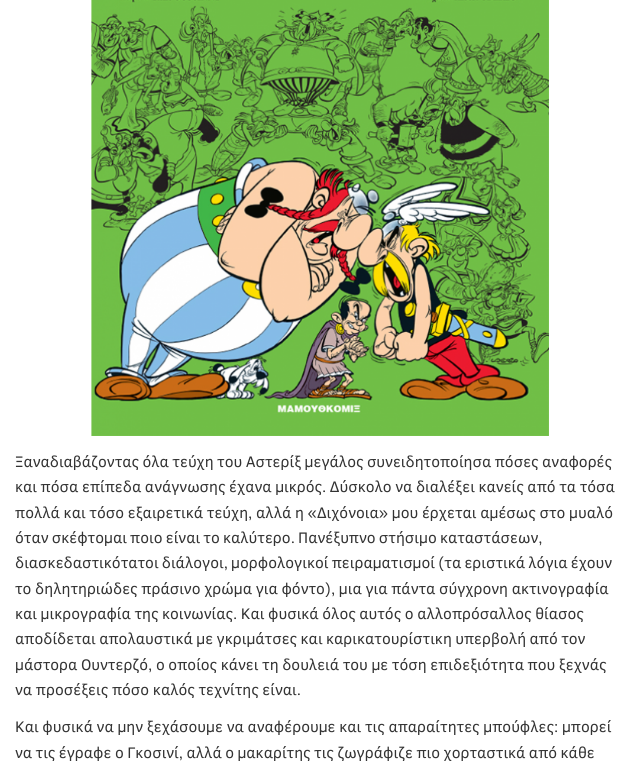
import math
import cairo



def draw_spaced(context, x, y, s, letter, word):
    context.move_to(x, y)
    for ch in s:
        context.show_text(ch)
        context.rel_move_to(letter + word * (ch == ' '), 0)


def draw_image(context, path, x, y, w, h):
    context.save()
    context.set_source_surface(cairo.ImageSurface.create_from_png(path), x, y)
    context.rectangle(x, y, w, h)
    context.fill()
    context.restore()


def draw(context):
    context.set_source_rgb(1, 1, 1)
    context.paint()
    draw_image(context, "images/1.png", 91, 0, 458, 436)
    context.select_font_face("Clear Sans")
    context.set_font_size(15.6)
    context.set_source_rgb(51 / 255, 51 / 255, 51 / 255)
    draw_spaced(context, 15, 467, "Ξαναδιαβάζοντας όλα τεύχη του Αστερίξ μεγάλος συνειδητοποίησα πόσες αναφορές", 0, -0.75)
    draw_spaced(context, 15, 492, "και πόσα επίπεδα ανάγνωσης έχανα μικρός. Δύσκολο να διαλέξει κανείς από τα τόσα", 0, -0.6)
    draw_spaced(context, 15, 518, "πολλά και τόσο εξαιρετικά τεύχη, αλλά η «Διχόνοια» μου έρχεται αμέσως στο μυαλό", 0, -0.5)
    draw_spaced(context, 15, 543, "όταν σκέφτομαι ποιο είναι το καλύτερο. Πανέξυπνο στήσιμο καταστάσεων,", 0, -1)
    draw_spaced(context, 15, 568, "διασκεδαστικότατοι διάλογοι, μορφολογικοί πειραματισμοί (τα εριστικά λόγια έχουν", 0, -1)
    draw_spaced(context, 15, 594, "το δηλητηριώδες πράσινο χρώμα για φόντο), μια για πάντα σύγχρονη ακτινογραφία", 0, -0.5)
    draw_spaced(context, 15, 619, "και μικρογραφία της κοινωνίας. Και φυσικά όλος αυτός ο αλλοπρόσαλλος θίασος", 0, -0.6)
    draw_spaced(context, 15, 644, "αποδίδεται απολαυστικά με γκριμάτσες και καρικατουρίστικη υπερβολή από τον", 0, -0.75)
    draw_spaced(context, 15, 670, "μάστορα Ουντερζό, ο οποίος κάνει τη δουλειά του με τόση επιδεξιότητα που ξεχνάς", 0, -0.6)
    draw_spaced(context, 15, 695, "να προσέξεις πόσο καλός τεχνίτης είναι.", 0, -0.5)
    draw_spaced(context, 15, 732, "Και φυσικά να μην ξεχάσουμε να αναφέρουμε και τις απαραίτητες μπούφλες: μπορεί", 0, -0.5)
    draw_spaced(context, 15, 758, "να τις έγραφε ο Γκοσινί, αλλά ο μακαρίτης τις ζωγράφιζε πιο χορταστικά από κάθε", 0, -0.75)


surface = cairo.ImageSurface(cairo.Format.RGB24, 641, 773)
context = cairo.Context(surface)
options = cairo.FontOptions()
options.set_hint_metrics(cairo.HintMetrics.OFF)
options.set_hint_style(cairo.HintStyle.NONE)
context.set_font_options(options)
context.set_miter_limit(4)
draw(context)
surface.write_to_png("out.png")
